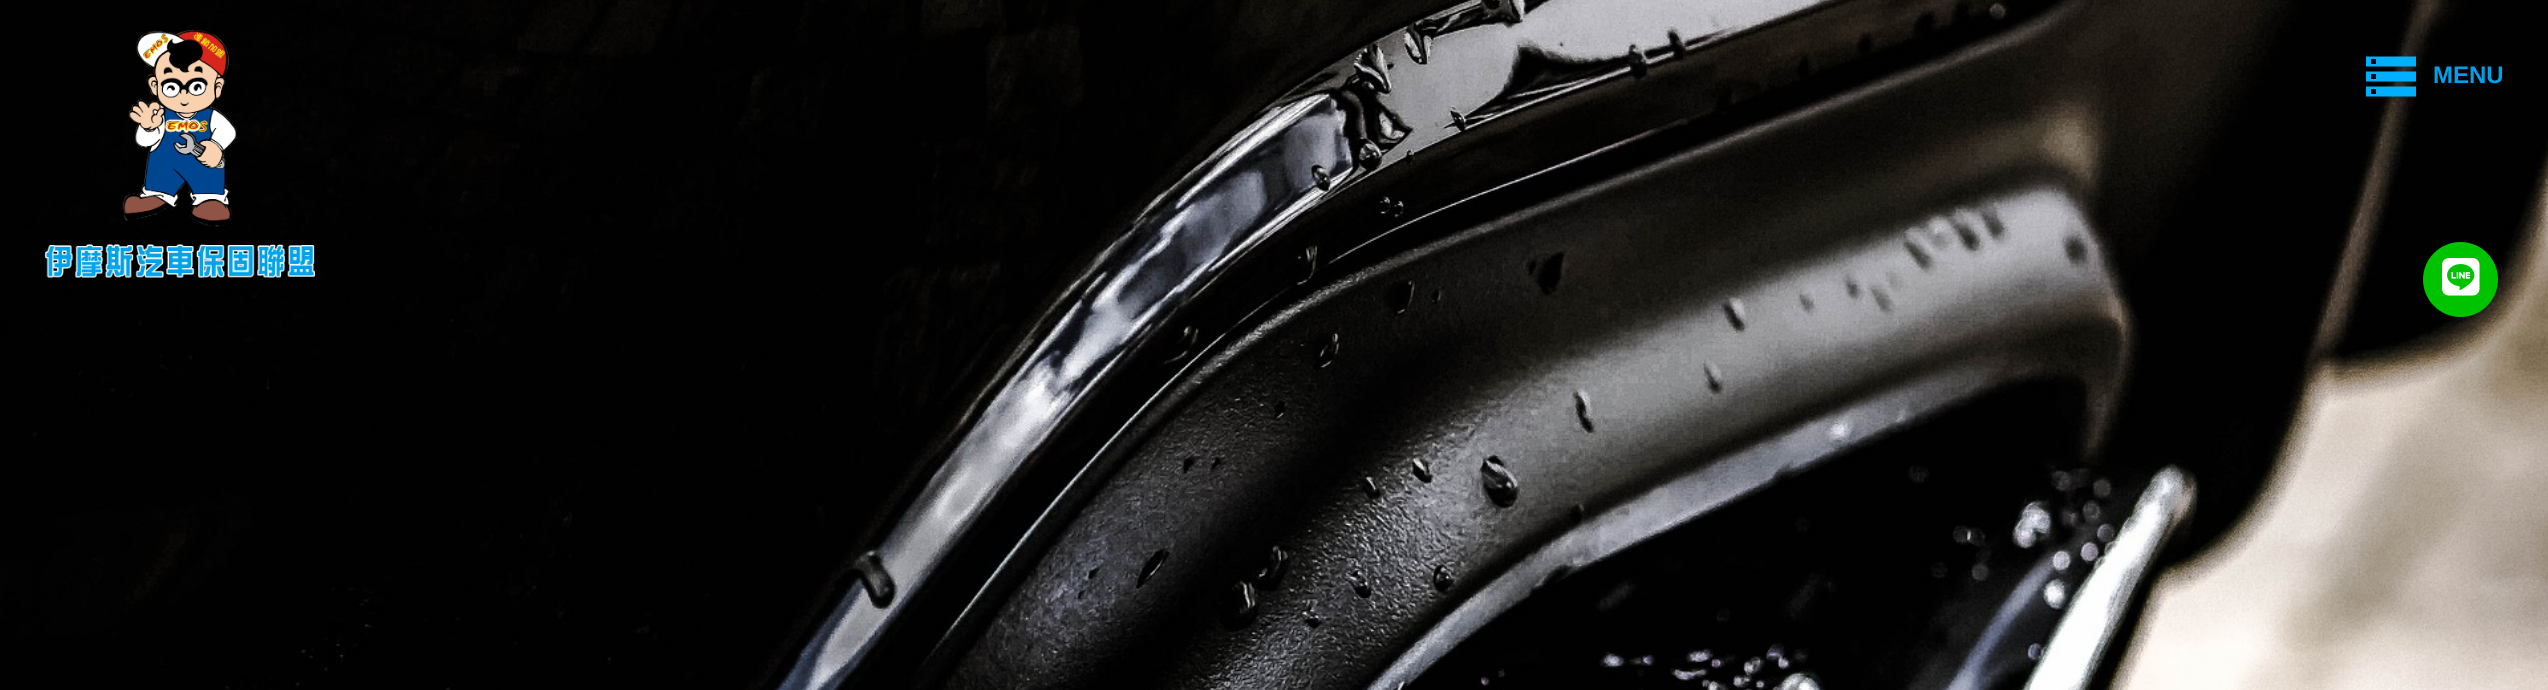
import math
import cairo



def draw_image(context, path, x, y, w, h):
    context.save()
    context.set_source_surface(cairo.ImageSurface.create_from_png(path), x, y)
    context.rectangle(x, y, w, h)
    context.fill()
    context.restore()


def draw(context):
    context.set_source_rgb(1, 1, 1)
    context.paint()
    draw_image(context, "images/1.png", 0, 0, 2548, 690)
    draw_image(context, "images/2.png", 45, 30, 270, 248)
    draw_image(context, "images/3.png", 2366, 56, 50, 41)
    context.set_source_rgb(0, 195 / 255, 0)
    context.arc(2460.5, 279.5, 37.5, 0, 2 * math.pi)
    context.fill()
    draw_image(context, "images/4.png", 2442, 258, 38, 38)
    context.select_font_face("Liberation Sans", cairo.FontSlant.NORMAL, cairo.FontWeight.BOLD)
    context.set_font_size(24)
    context.set_source_rgb(0, 161 / 255, 233 / 255)
    context.move_to(2433, 83)
    context.show_text("MENU")


surface = cairo.ImageSurface(cairo.Format.RGB24, 2548, 690)
context = cairo.Context(surface)
options = cairo.FontOptions()
options.set_hint_metrics(cairo.HintMetrics.OFF)
options.set_hint_style(cairo.HintStyle.NONE)
context.set_font_options(options)
context.set_miter_limit(4)
draw(context)
surface.write_to_png("out.png")
